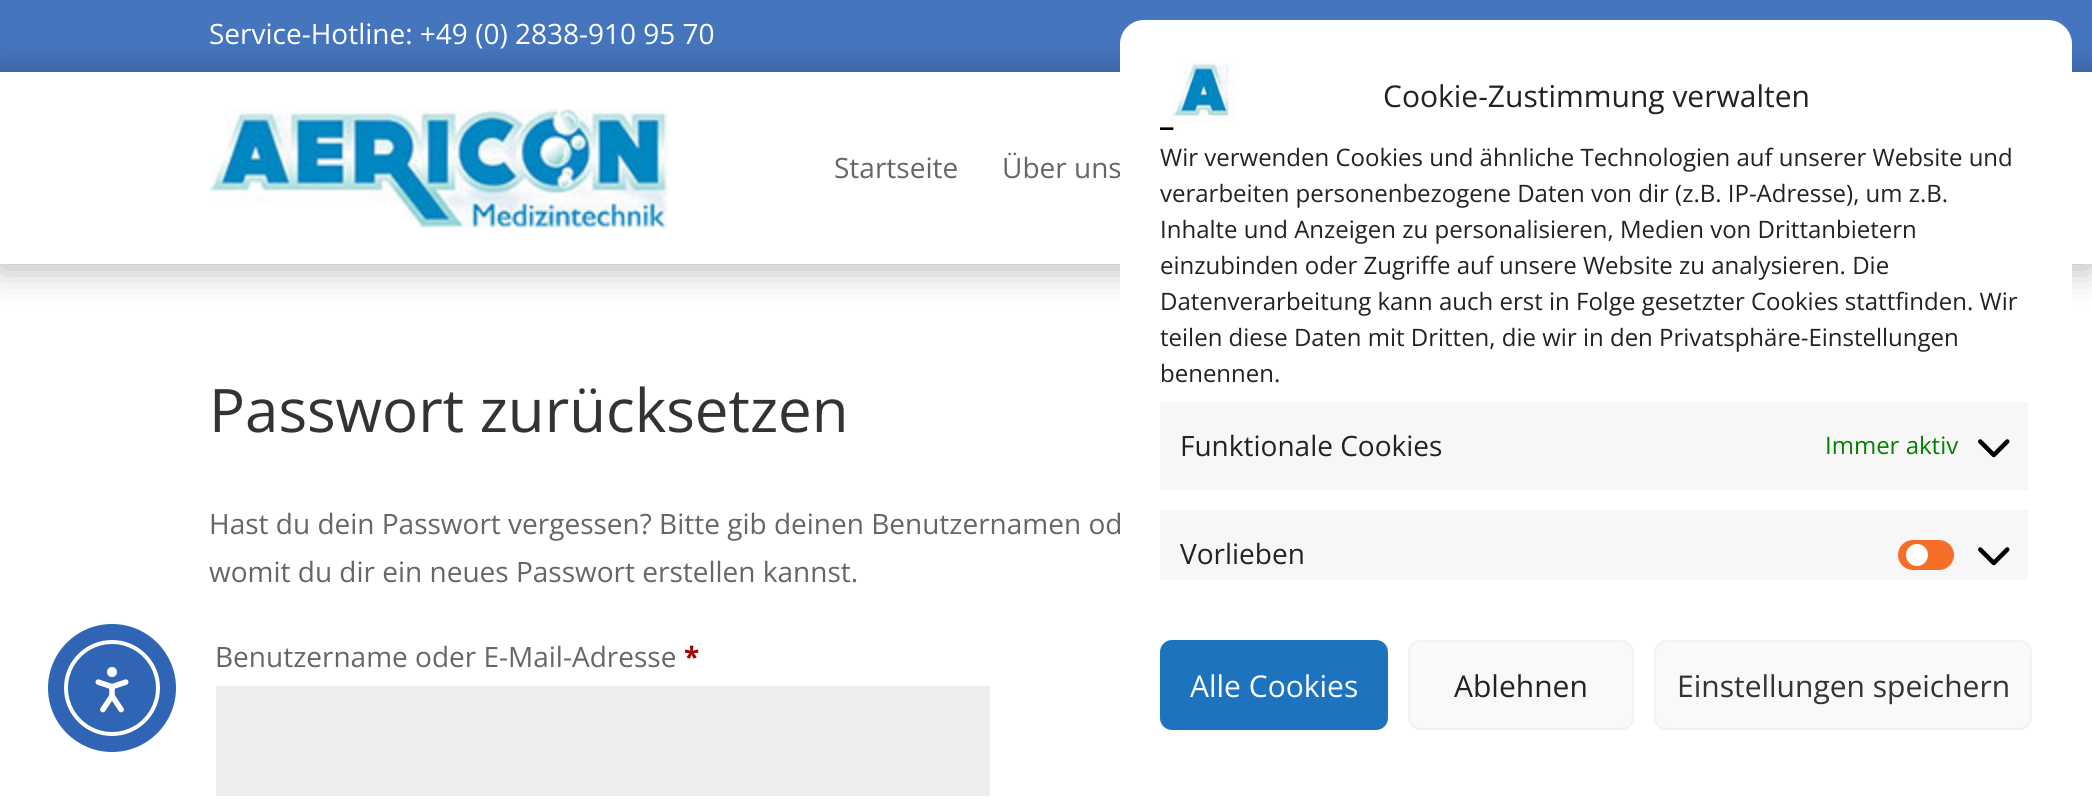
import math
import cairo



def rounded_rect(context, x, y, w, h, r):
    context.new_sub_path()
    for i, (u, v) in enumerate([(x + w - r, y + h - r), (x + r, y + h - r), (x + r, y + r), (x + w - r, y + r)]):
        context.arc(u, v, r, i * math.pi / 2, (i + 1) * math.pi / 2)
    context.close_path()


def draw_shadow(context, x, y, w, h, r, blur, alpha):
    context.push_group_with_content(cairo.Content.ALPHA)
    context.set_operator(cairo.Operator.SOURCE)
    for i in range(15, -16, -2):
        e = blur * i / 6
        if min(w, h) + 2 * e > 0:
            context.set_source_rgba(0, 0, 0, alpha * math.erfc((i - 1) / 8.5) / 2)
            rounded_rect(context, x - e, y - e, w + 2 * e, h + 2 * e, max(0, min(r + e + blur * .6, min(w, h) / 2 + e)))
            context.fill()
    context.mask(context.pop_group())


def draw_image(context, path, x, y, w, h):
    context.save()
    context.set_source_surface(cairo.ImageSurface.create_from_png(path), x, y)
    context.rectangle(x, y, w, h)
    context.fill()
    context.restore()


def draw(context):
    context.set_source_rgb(1, 1, 1)
    context.paint()
    context.set_source_rgb(48 / 255, 100 / 255, 181 / 255)
    context.arc(112, 688, 64, 0, 2 * math.pi)
    context.fill()
    context.arc(112, 688, 46, 0, 2 * math.pi)
    context.set_source_rgb(1, 1, 1)
    context.set_line_width(4)
    context.stroke()
    draw_image(context, "images/1.png", 95, 667, 34, 46)
    context.set_source_rgb(69 / 255, 117 / 255, 189 / 255)
    context.rectangle(0, 0, 2092, 72)
    context.fill()
    context.save()
    context.set_fill_rule(cairo.FillRule.EVEN_ODD)
    context.new_path()
    context.move_to(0, 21)
    context.line_to(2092, 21)
    context.line_to(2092, 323)
    context.line_to(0, 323)
    context.close_path()
    context.move_to(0, 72)
    context.line_to(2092, 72)
    context.line_to(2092, 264)
    context.line_to(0, 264)
    context.close_path()
    context.clip()
    context.set_source_rgb(0, 0, 0)
    draw_shadow(context, 0, 76, 2092, 192, 0, 18, 0.3)
    context.restore()
    draw_image(context, "images/2.png", 210, 108, 458, 120)
    context.set_source_rgb(238 / 255, 238 / 255, 238 / 255)
    context.rectangle(216, 686, 774, 110)
    context.fill()
    context.select_font_face("Open Sans")
    context.set_font_size(28)
    context.set_source_rgb(1, 1, 1)
    context.move_to(209, 44)
    context.show_text("Service-Hotline: +49 (0) 2838-910 95 70")
    context.set_source_rgb(102 / 255, 102 / 255, 102 / 255)
    context.move_to(834, 178)
    context.show_text("Startseite")
    context.move_to(1002, 178)
    context.show_text("Über uns")
    context.set_font_size(60)
    context.set_source_rgb(51 / 255, 51 / 255, 51 / 255)
    context.move_to(209, 432)
    context.show_text("Passwort zurücksetzen")
    context.set_font_size(28)
    context.set_source_rgb(102 / 255, 102 / 255, 102 / 255)
    context.move_to(209, 534)
    context.show_text("Hast du dein Passwort vergessen? Bitte gib deinen Benutzernamen od")
    context.move_to(209, 582)
    context.show_text("womit du dir ein neues Passwort erstellen kannst.")
    context.move_to(215, 667)
    context.show_text("Benutzername oder E-Mail-Adresse")
    context.select_font_face("Open Sans", cairo.FontSlant.NORMAL, cairo.FontWeight.BOLD)
    context.set_source_rgb(170 / 255, 0, 0)
    context.move_to(684, 667)
    context.show_text("*")
    context.set_source_rgb(1, 1, 1)
    rounded_rect(context, 1120, 20, 952, 760, 24)
    context.fill()
    draw_image(context, "images/3.png", 1160, 61, 75, 69)
    context.select_font_face("Open Sans")
    context.set_font_size(30)
    context.set_source_rgb(34 / 255, 34 / 255, 34 / 255)
    context.move_to(1383, 107)
    context.show_text("Cookie-Zustimmung verwalten")
    context.set_font_size(24)
    context.move_to(1160, 166)
    context.show_text("Wir verwenden Cookies und ähnliche Technologien auf unserer Website und")
    context.move_to(1160, 202)
    context.show_text("verarbeiten personenbezogene Daten von dir (z.B. IP-Adresse), um z.B.")
    context.move_to(1160, 238)
    context.show_text("Inhalte und Anzeigen zu personalisieren, Medien von Drittanbietern")
    context.move_to(1160, 274)
    context.show_text("einzubinden oder Zugriffe auf unsere Website zu analysieren. Die")
    context.move_to(1160, 310)
    context.show_text("Datenverarbeitung kann auch erst in Folge gesetzter Cookies stattfinden. Wir")
    context.move_to(1160, 346)
    context.show_text("teilen diese Daten mit Dritten, die wir in den Privatsphäre-Einstellungen")
    context.move_to(1160, 382)
    context.show_text("benennen.")
    context.set_source_rgb(247 / 255, 247 / 255, 247 / 255)
    context.rectangle(1160, 402, 868, 88)
    context.fill()
    context.set_font_size(28)
    context.set_source_rgb(34 / 255, 34 / 255, 34 / 255)
    context.move_to(1180, 456)
    context.show_text("Funktionale Cookies")
    context.set_font_size(24)
    context.set_source_rgb(0, 128 / 255, 0)
    context.move_to(1825, 454)
    context.show_text("Immer aktiv")
    draw_image(context, "images/4.png", 1978, 439, 32, 19)
    context.set_source_rgb(247 / 255, 247 / 255, 247 / 255)
    context.rectangle(1160, 510, 868, 70)
    context.fill()
    context.set_font_size(28)
    context.set_source_rgb(34 / 255, 34 / 255, 34 / 255)
    context.move_to(1180, 564)
    context.show_text("Vorlieben")
    context.set_source_rgb(245 / 255, 110 / 255, 40 / 255)
    rounded_rect(context, 1898, 540, 56, 30, 15)
    context.fill()
    context.set_source_rgb(1, 1, 1)
    context.arc(1917, 555, 11, 0, 2 * math.pi)
    context.fill()
    draw_image(context, "images/4.png", 1978, 547, 32, 19)
    context.set_source_rgb(30 / 255, 115 / 255, 190 / 255)
    rounded_rect(context, 1161, 641, 226, 88, 11)
    context.fill_preserve()
    context.set_line_width(2)
    context.stroke()
    context.set_font_size(30)
    context.set_source_rgb(1, 1, 1)
    context.move_to(1190, 697)
    context.show_text("Alle Cookies")
    context.set_source_rgb(249 / 255, 249 / 255, 249 / 255)
    rounded_rect(context, 1409, 641, 224, 88, 11)
    context.fill_preserve()
    context.set_source_rgb(242 / 255, 242 / 255, 242 / 255)
    context.stroke()
    context.set_source_rgb(34 / 255, 34 / 255, 34 / 255)
    context.move_to(1454, 697)
    context.show_text("Ablehnen")
    context.set_source_rgb(249 / 255, 249 / 255, 249 / 255)
    rounded_rect(context, 1655, 641, 376, 88, 11)
    context.fill_preserve()
    context.set_source_rgb(242 / 255, 242 / 255, 242 / 255)
    context.stroke()
    context.set_source_rgb(51 / 255, 51 / 255, 51 / 255)
    context.move_to(1677, 697)
    context.show_text("Einstellungen speichern")


surface = cairo.ImageSurface(cairo.Format.RGB24, 2092, 799)
context = cairo.Context(surface)
options = cairo.FontOptions()
options.set_hint_metrics(cairo.HintMetrics.OFF)
options.set_hint_style(cairo.HintStyle.NONE)
context.set_font_options(options)
context.set_miter_limit(4)
draw(context)
surface.write_to_png("out.png")
